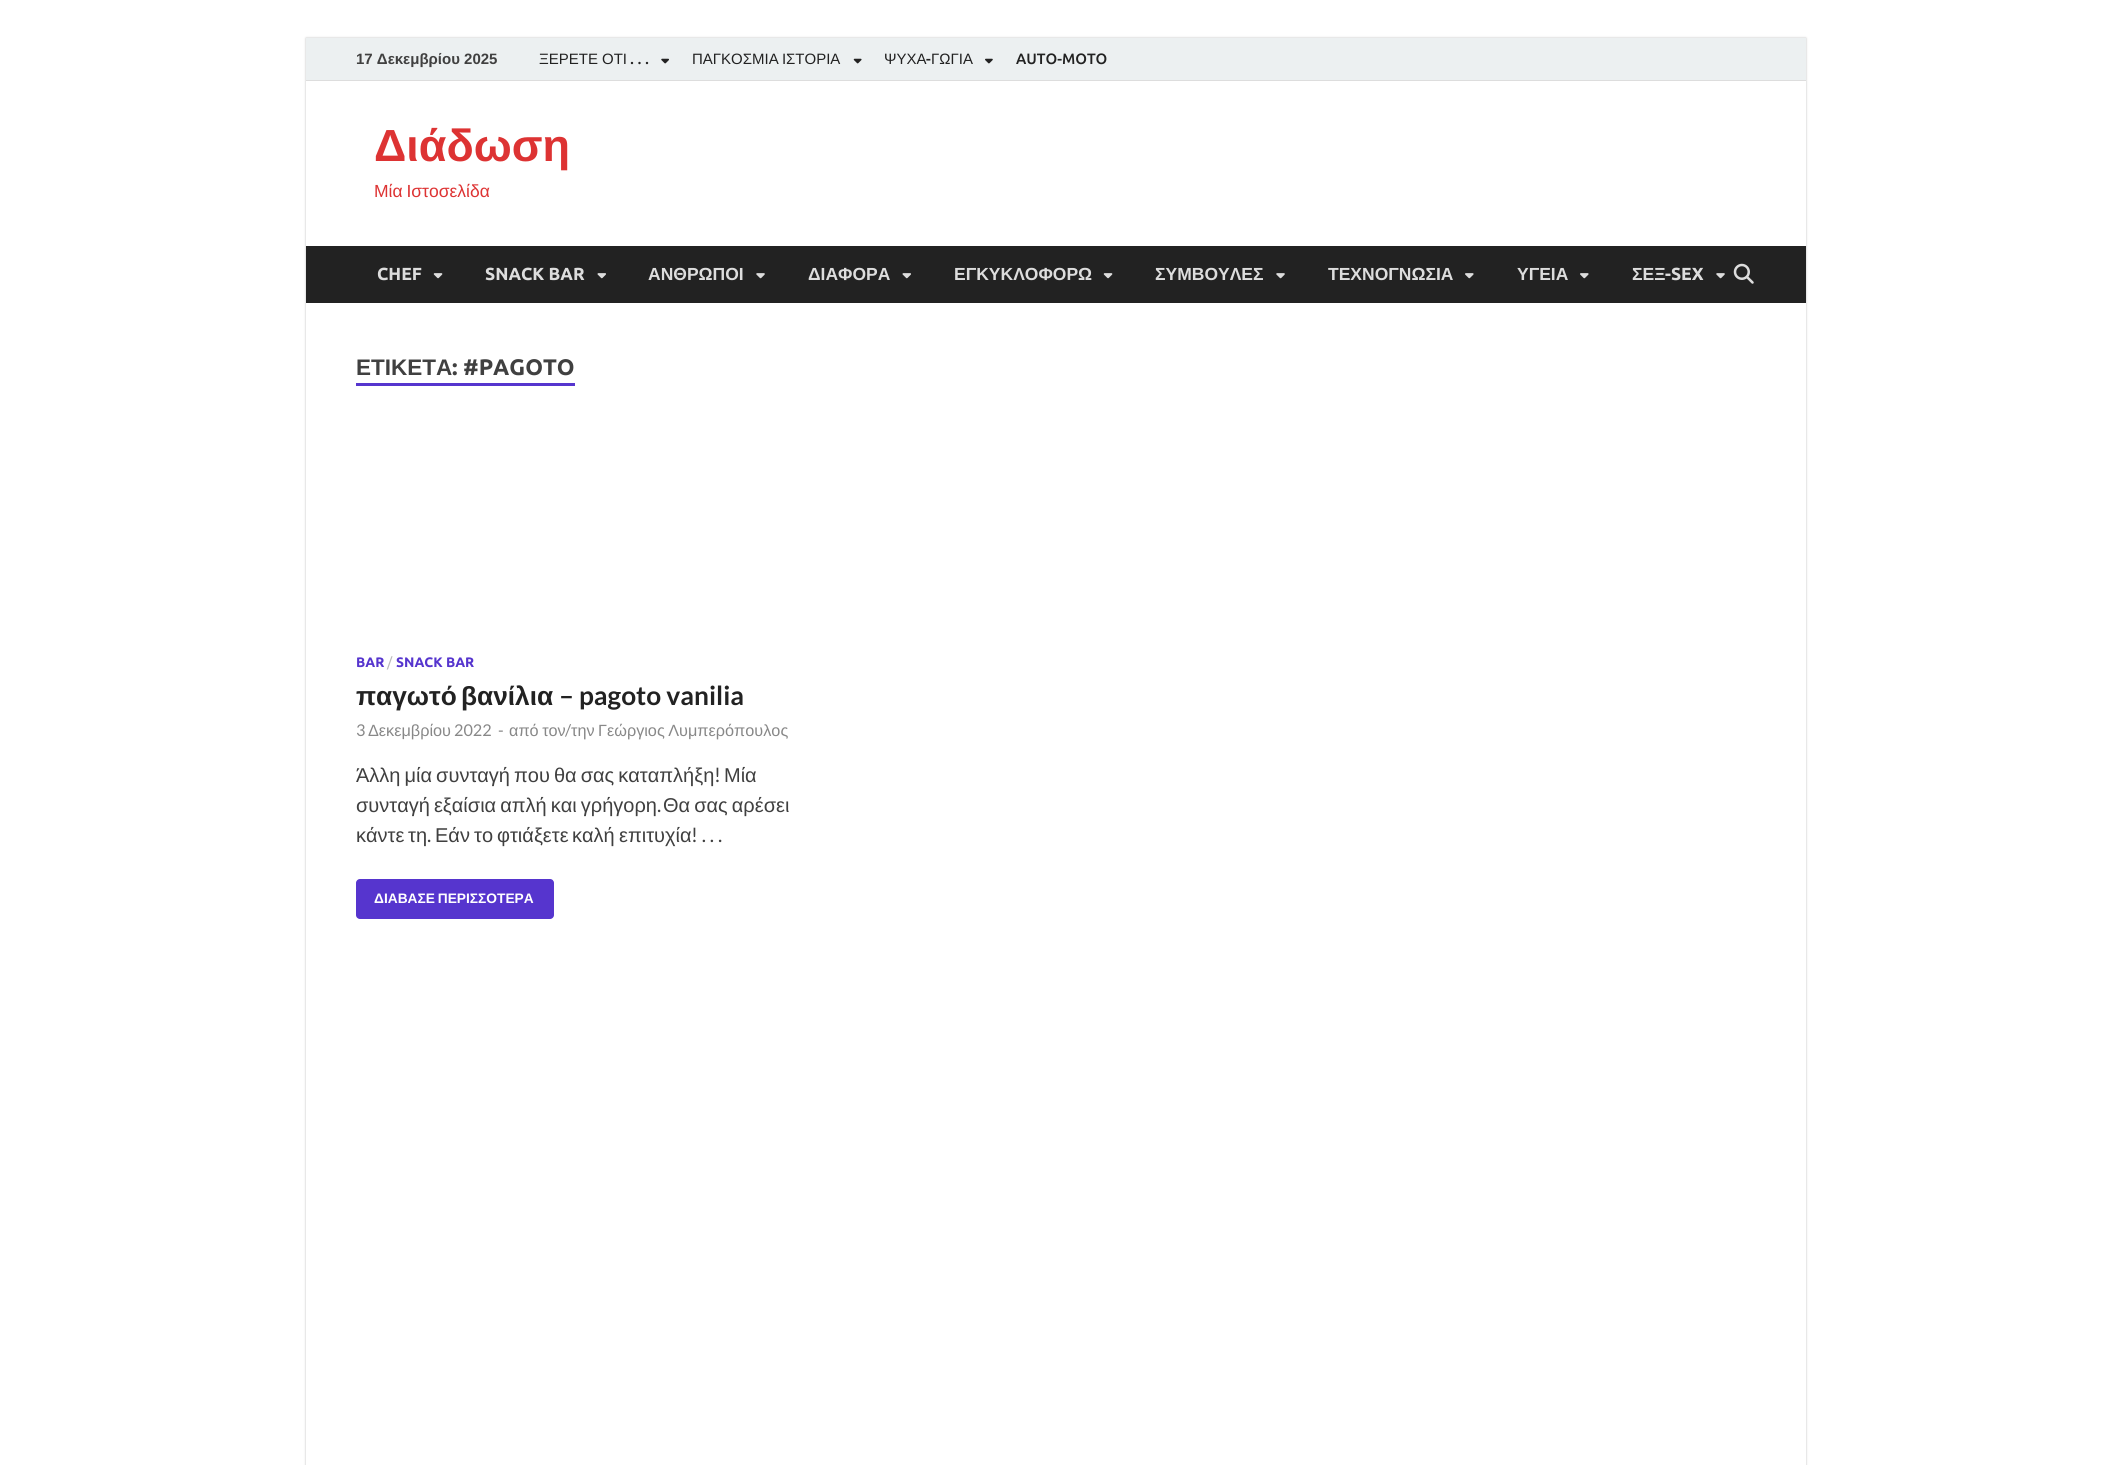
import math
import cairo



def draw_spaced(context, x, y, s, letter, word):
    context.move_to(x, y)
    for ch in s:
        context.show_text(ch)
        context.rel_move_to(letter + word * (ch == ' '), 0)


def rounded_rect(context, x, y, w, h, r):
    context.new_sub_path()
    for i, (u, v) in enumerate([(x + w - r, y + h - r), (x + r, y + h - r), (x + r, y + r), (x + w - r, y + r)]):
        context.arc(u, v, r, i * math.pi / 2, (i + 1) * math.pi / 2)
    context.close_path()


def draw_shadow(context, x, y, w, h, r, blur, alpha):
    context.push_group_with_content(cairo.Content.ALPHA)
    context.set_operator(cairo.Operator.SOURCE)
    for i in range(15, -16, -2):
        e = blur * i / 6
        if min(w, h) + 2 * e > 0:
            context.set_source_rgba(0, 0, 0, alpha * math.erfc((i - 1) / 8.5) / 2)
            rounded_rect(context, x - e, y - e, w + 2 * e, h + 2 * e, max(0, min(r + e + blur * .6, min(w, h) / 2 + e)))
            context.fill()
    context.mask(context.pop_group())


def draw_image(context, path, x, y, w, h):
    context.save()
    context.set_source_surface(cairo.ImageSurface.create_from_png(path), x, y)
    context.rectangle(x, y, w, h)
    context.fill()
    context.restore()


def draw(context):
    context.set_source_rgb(1, 1, 1)
    context.paint()
    context.set_source_rgb(187 / 255, 187 / 255, 187 / 255)
    draw_shadow(context, 306, 38, 1500, 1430, 0, 1, 1)
    context.set_source_rgb(1, 1, 1)
    context.rectangle(306, 81, 1500, 1384)
    context.fill()
    context.set_source_rgb(236 / 255, 240 / 255, 241 / 255)
    context.rectangle(306, 38, 1500, 42)
    context.fill()
    context.set_source_rgb(221 / 255, 221 / 255, 221 / 255)
    context.rectangle(306, 80, 1500, 1)
    context.fill()
    draw_image(context, "images/1.png", 661, 58, 8, 6)
    draw_image(context, "images/2.png", 853, 58, 9, 6)
    draw_image(context, "images/3.png", 985, 58, 8, 6)
    context.set_source_rgb(34 / 255, 34 / 255, 34 / 255)
    context.rectangle(306, 246, 1500, 57)
    context.fill()
    draw_image(context, "images/4.png", 433, 273, 10, 6)
    draw_image(context, "images/5.png", 597, 273, 9, 6)
    draw_image(context, "images/6.png", 756, 273, 9, 6)
    draw_image(context, "images/5.png", 902, 273, 9, 6)
    draw_image(context, "images/4.png", 1103, 273, 10, 6)
    draw_image(context, "images/6.png", 1276, 273, 9, 6)
    draw_image(context, "images/7.png", 1465, 273, 9, 6)
    draw_image(context, "images/7.png", 1580, 273, 9, 6)
    draw_image(context, "images/6.png", 1716, 273, 9, 6)
    draw_image(context, "images/8.png", 1733, 263, 21, 21)
    context.set_source_rgb(86 / 255, 53 / 255, 206 / 255)
    context.rectangle(356, 383, 219, 3)
    context.fill()
    rounded_rect(context, 356, 879, 198, 40, 4)
    context.fill()
    context.select_font_face("Liberation Sans", cairo.FontSlant.NORMAL, cairo.FontWeight.BOLD)
    context.set_font_size(15)
    context.set_source_rgb(64 / 255, 64 / 255, 64 / 255)
    context.move_to(356, 64)
    context.show_text("17 Δεκεμβρίου 2025")
    context.select_font_face("Liberation Sans")
    context.set_source_rgb(34 / 255, 34 / 255, 34 / 255)
    context.move_to(539, 64)
    context.show_text("ΞΕΡΕΤΕ")
    context.move_to(602, 64)
    context.show_text("ΟΤΙ")
    context.select_font_face("Ubuntu Medium")
    context.move_to(630, 64)
    context.show_text(". . .")
    context.select_font_face("Liberation Sans")
    draw_spaced(context, 692, 64, "ΠΑΓΚΟΣΜΙΑ ΙΣΤΟΡΙΑ", 0, -1)
    context.move_to(884, 64)
    context.show_text("ΨΥΧΑ")
    context.select_font_face("Ubuntu Medium")
    context.move_to(926, 64)
    context.show_text("-")
    context.select_font_face("Liberation Sans")
    context.move_to(931, 64)
    context.show_text("ΓΩΓΙΑ")
    context.select_font_face("Ubuntu Medium")
    context.move_to(1016, 64)
    context.show_text("AUTO-MOTO")
    context.select_font_face("Liberation Sans", cairo.FontSlant.NORMAL, cairo.FontWeight.BOLD)
    context.set_font_size(45)
    context.set_source_rgb(221 / 255, 51 / 255, 51 / 255)
    context.move_to(374, 161)
    context.show_text("Διάδωση")
    context.select_font_face("Liberation Sans")
    context.set_font_size(17.5)
    draw_spaced(context, 374, 197, "Μία Ιστοσελίδα", 0, -1)
    context.select_font_face("Ubuntu", cairo.FontSlant.NORMAL, cairo.FontWeight.BOLD)
    context.set_source_rgb(221 / 255, 221 / 255, 221 / 255)
    context.move_to(377, 280)
    context.show_text("CHEF")
    context.move_to(485, 280)
    context.show_text("SNACK BAR")
    context.select_font_face("Liberation Sans", cairo.FontSlant.NORMAL, cairo.FontWeight.BOLD)
    context.move_to(648, 280)
    context.show_text("ΑΝΘΡΩΠΟΙ")
    context.move_to(808, 280)
    context.show_text("ΔΙΑΦΟΡΑ")
    context.move_to(954, 280)
    context.show_text("ΕΓΚΥΚΛΟΦΟΡΩ")
    context.move_to(1155, 280)
    context.show_text("ΣΥΜΒΟΥΛΕΣ")
    context.move_to(1328, 280)
    context.show_text("ΤΕΧΝΟΓΝΩΣΙΑ")
    context.move_to(1517, 280)
    context.show_text("ΥΓΕΙΑ")
    context.move_to(1632, 280)
    context.show_text("ΣΕΞ")
    context.select_font_face("Ubuntu", cairo.FontSlant.NORMAL, cairo.FontWeight.BOLD)
    context.move_to(1665, 280)
    context.show_text("-SEX")
    context.select_font_face("Liberation Sans", cairo.FontSlant.NORMAL, cairo.FontWeight.BOLD)
    context.set_font_size(22.5)
    context.set_source_rgb(64 / 255, 64 / 255, 64 / 255)
    context.move_to(356, 375)
    context.show_text("ΕΤΙΚΕΤΑ")
    context.select_font_face("Ubuntu", cairo.FontSlant.NORMAL, cairo.FontWeight.BOLD)
    context.move_to(452, 375)
    context.show_text(": #PAGOTO")
    context.set_font_size(13.75)
    context.set_source_rgb(86 / 255, 53 / 255, 206 / 255)
    context.move_to(356, 667)
    context.show_text("BAR")
    context.select_font_face("Ubuntu")
    context.set_source_rgb(187 / 255, 187 / 255, 187 / 255)
    context.move_to(387, 667)
    context.show_text("/")
    context.select_font_face("Ubuntu", cairo.FontSlant.NORMAL, cairo.FontWeight.BOLD)
    context.set_source_rgb(86 / 255, 53 / 255, 206 / 255)
    context.move_to(396, 667)
    context.show_text("SNACK BAR")
    context.select_font_face("Liberation Sans", cairo.FontSlant.NORMAL, cairo.FontWeight.BOLD)
    context.set_font_size(26.25)
    context.set_source_rgb(34 / 255, 34 / 255, 34 / 255)
    context.move_to(356, 705)
    context.show_text("παγωτό")
    context.move_to(461, 705)
    context.show_text("βανίλια")
    context.select_font_face("Lato", cairo.FontSlant.NORMAL, cairo.FontWeight.BOLD)
    context.move_to(559, 705)
    context.show_text("– pagoto vanilia")
    context.select_font_face("Lato")
    context.set_font_size(16.25)
    context.set_source_rgb(136 / 255, 136 / 255, 136 / 255)
    context.move_to(356, 736)
    context.show_text("3")
    context.select_font_face("Liberation Sans")
    context.move_to(368, 736)
    context.show_text("Δεκεμβρίου")
    context.select_font_face("Lato")
    context.move_to(454, 736)
    context.show_text("2022")
    context.move_to(498, 736)
    context.show_text("-")
    context.select_font_face("Liberation Sans")
    draw_spaced(context, 509, 736, "από τον", 0, -1)
    context.select_font_face("Lato")
    context.move_to(565, 736)
    context.show_text("/")
    context.select_font_face("Liberation Sans")
    context.move_to(571, 736)
    context.show_text("την")
    draw_spaced(context, 598, 736, "Γεώργιος Λυμπερόπουλος", 0, -1)
    context.set_font_size(20)
    context.set_source_rgb(64 / 255, 64 / 255, 64 / 255)
    draw_spaced(context, 356, 782, "Άλλη μία συνταγή που θα σας καταπλήξη", 0, -1.5)
    context.select_font_face("Lato")
    context.move_to(714, 782)
    context.show_text("!")
    context.select_font_face("Liberation Sans")
    context.move_to(724, 782)
    context.show_text("Μία")
    draw_spaced(context, 356, 812, "συνταγή εξαίσια απλή και γρήγορη", 0, -1.5)
    context.select_font_face("Lato")
    context.move_to(657, 812)
    context.show_text(".")
    context.select_font_face("Liberation Sans")
    draw_spaced(context, 663, 812, "Θα σας αρέσει", 0, -1.5)
    context.move_to(356, 842)
    context.show_text("κάντε")
    context.move_to(408, 842)
    context.show_text("τη")
    context.select_font_face("Lato")
    context.move_to(427, 842)
    context.show_text(".")
    context.select_font_face("Liberation Sans")
    context.move_to(435, 842)
    context.show_text("Εάν")
    context.move_to(474, 842)
    context.show_text("το")
    context.move_to(497, 842)
    context.show_text("φτιάξετε")
    context.move_to(572, 842)
    context.show_text("καλή")
    context.move_to(619, 842)
    context.show_text("επιτυχία")
    context.select_font_face("Lato")
    context.move_to(691, 842)
    context.show_text("! . . .")
    context.select_font_face("Liberation Sans", cairo.FontSlant.NORMAL, cairo.FontWeight.BOLD)
    context.set_font_size(13.75)
    context.set_source_rgb(1, 1, 1)
    draw_spaced(context, 374, 903, "ΔΙΑΒΑΣΕ ΠΕΡΙΣΣΟΤΕΡΑ", 0, -1)


surface = cairo.ImageSurface(cairo.Format.RGB24, 2111, 1465)
context = cairo.Context(surface)
options = cairo.FontOptions()
options.set_hint_metrics(cairo.HintMetrics.OFF)
options.set_hint_style(cairo.HintStyle.NONE)
context.set_font_options(options)
context.set_miter_limit(4)
draw(context)
surface.write_to_png("out.png")
